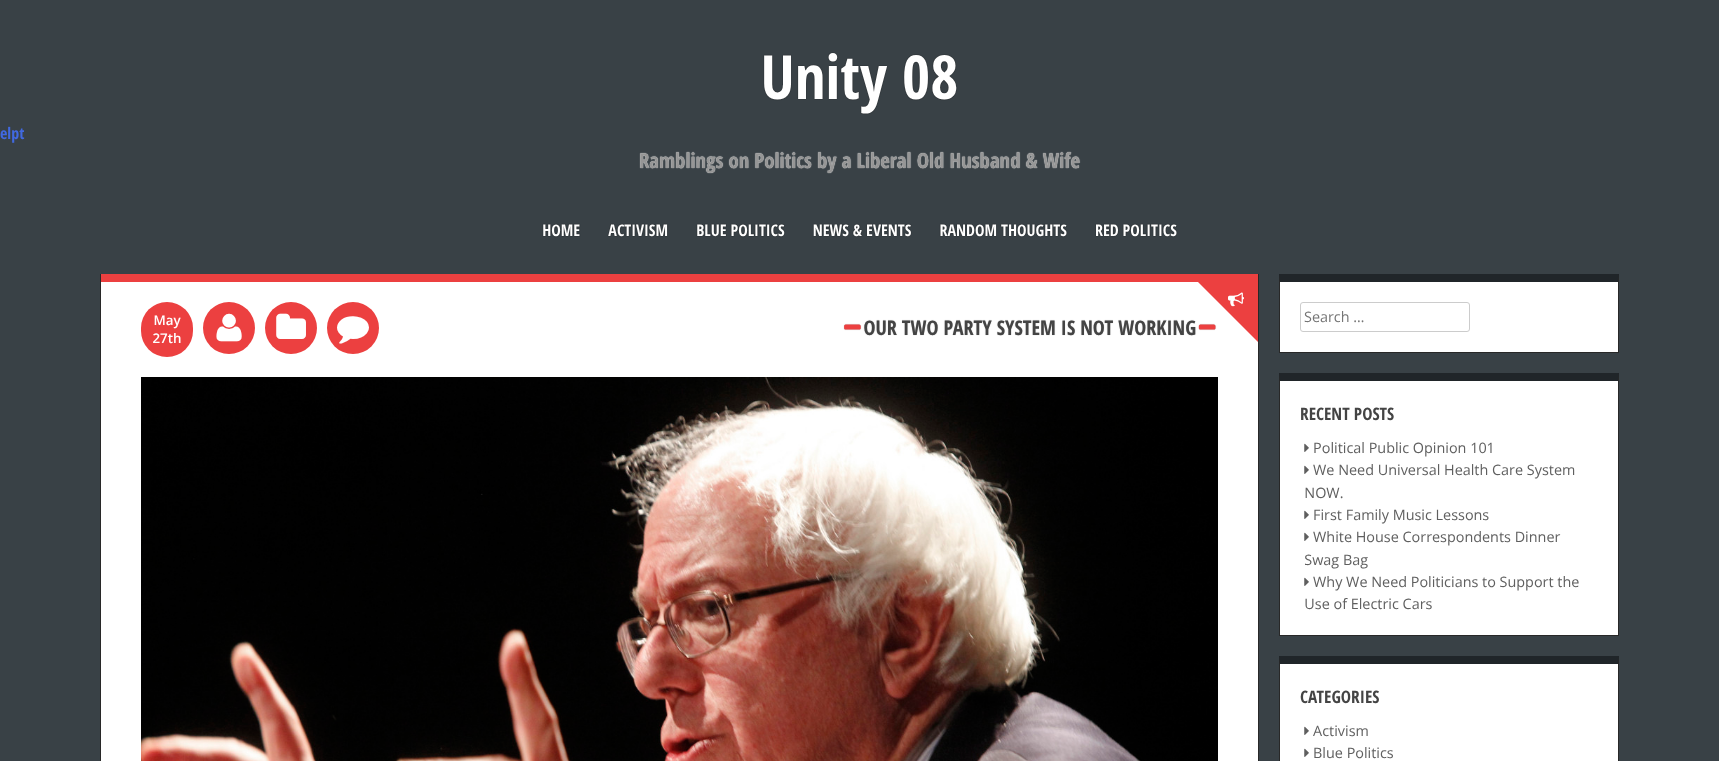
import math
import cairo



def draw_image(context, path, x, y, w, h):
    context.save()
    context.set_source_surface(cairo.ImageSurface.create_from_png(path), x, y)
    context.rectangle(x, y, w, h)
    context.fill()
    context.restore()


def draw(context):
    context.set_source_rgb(1, 1, 1)
    context.paint()
    draw_image(context, "images/1.png", 0, 0, 1719, 761)


surface = cairo.ImageSurface(cairo.Format.RGB24, 1719, 761)
context = cairo.Context(surface)
options = cairo.FontOptions()
options.set_hint_metrics(cairo.HintMetrics.OFF)
options.set_hint_style(cairo.HintStyle.NONE)
context.set_font_options(options)
context.set_miter_limit(4)
draw(context)
surface.write_to_png("out.png")
